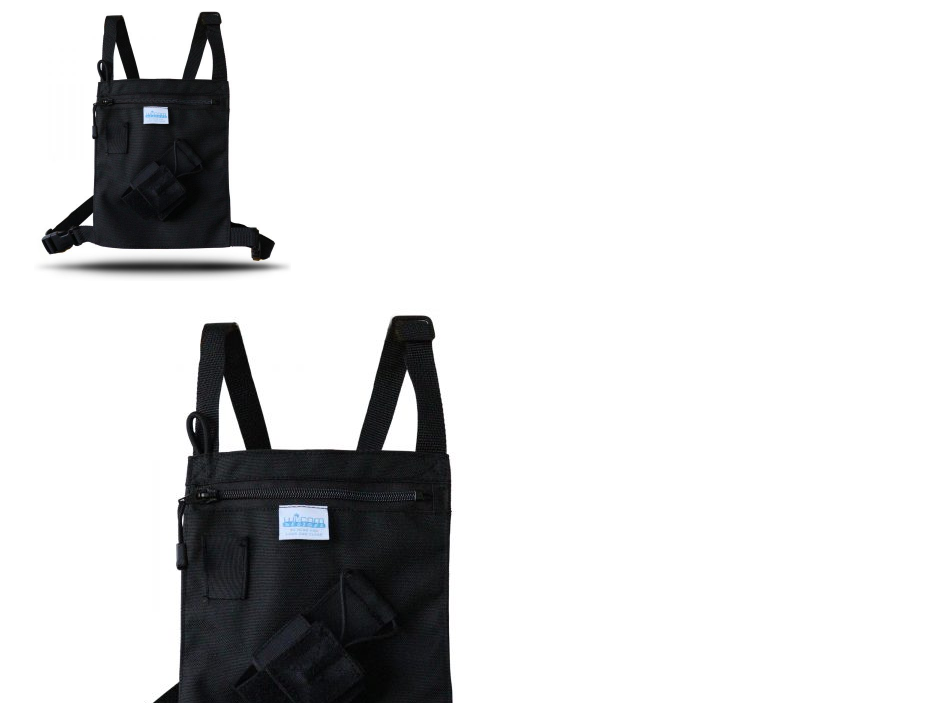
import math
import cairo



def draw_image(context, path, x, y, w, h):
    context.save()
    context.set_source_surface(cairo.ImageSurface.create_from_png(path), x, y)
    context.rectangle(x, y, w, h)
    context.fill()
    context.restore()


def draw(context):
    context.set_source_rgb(1, 1, 1)
    context.paint()
    draw_image(context, "images/1.png", 34, 11, 257, 270)
    draw_image(context, "images/2.png", 144, 308, 312, 395)


surface = cairo.ImageSurface(cairo.Format.RGB24, 937, 703)
context = cairo.Context(surface)
options = cairo.FontOptions()
options.set_hint_metrics(cairo.HintMetrics.OFF)
options.set_hint_style(cairo.HintStyle.NONE)
context.set_font_options(options)
context.set_miter_limit(4)
draw(context)
surface.write_to_png("out.png")
